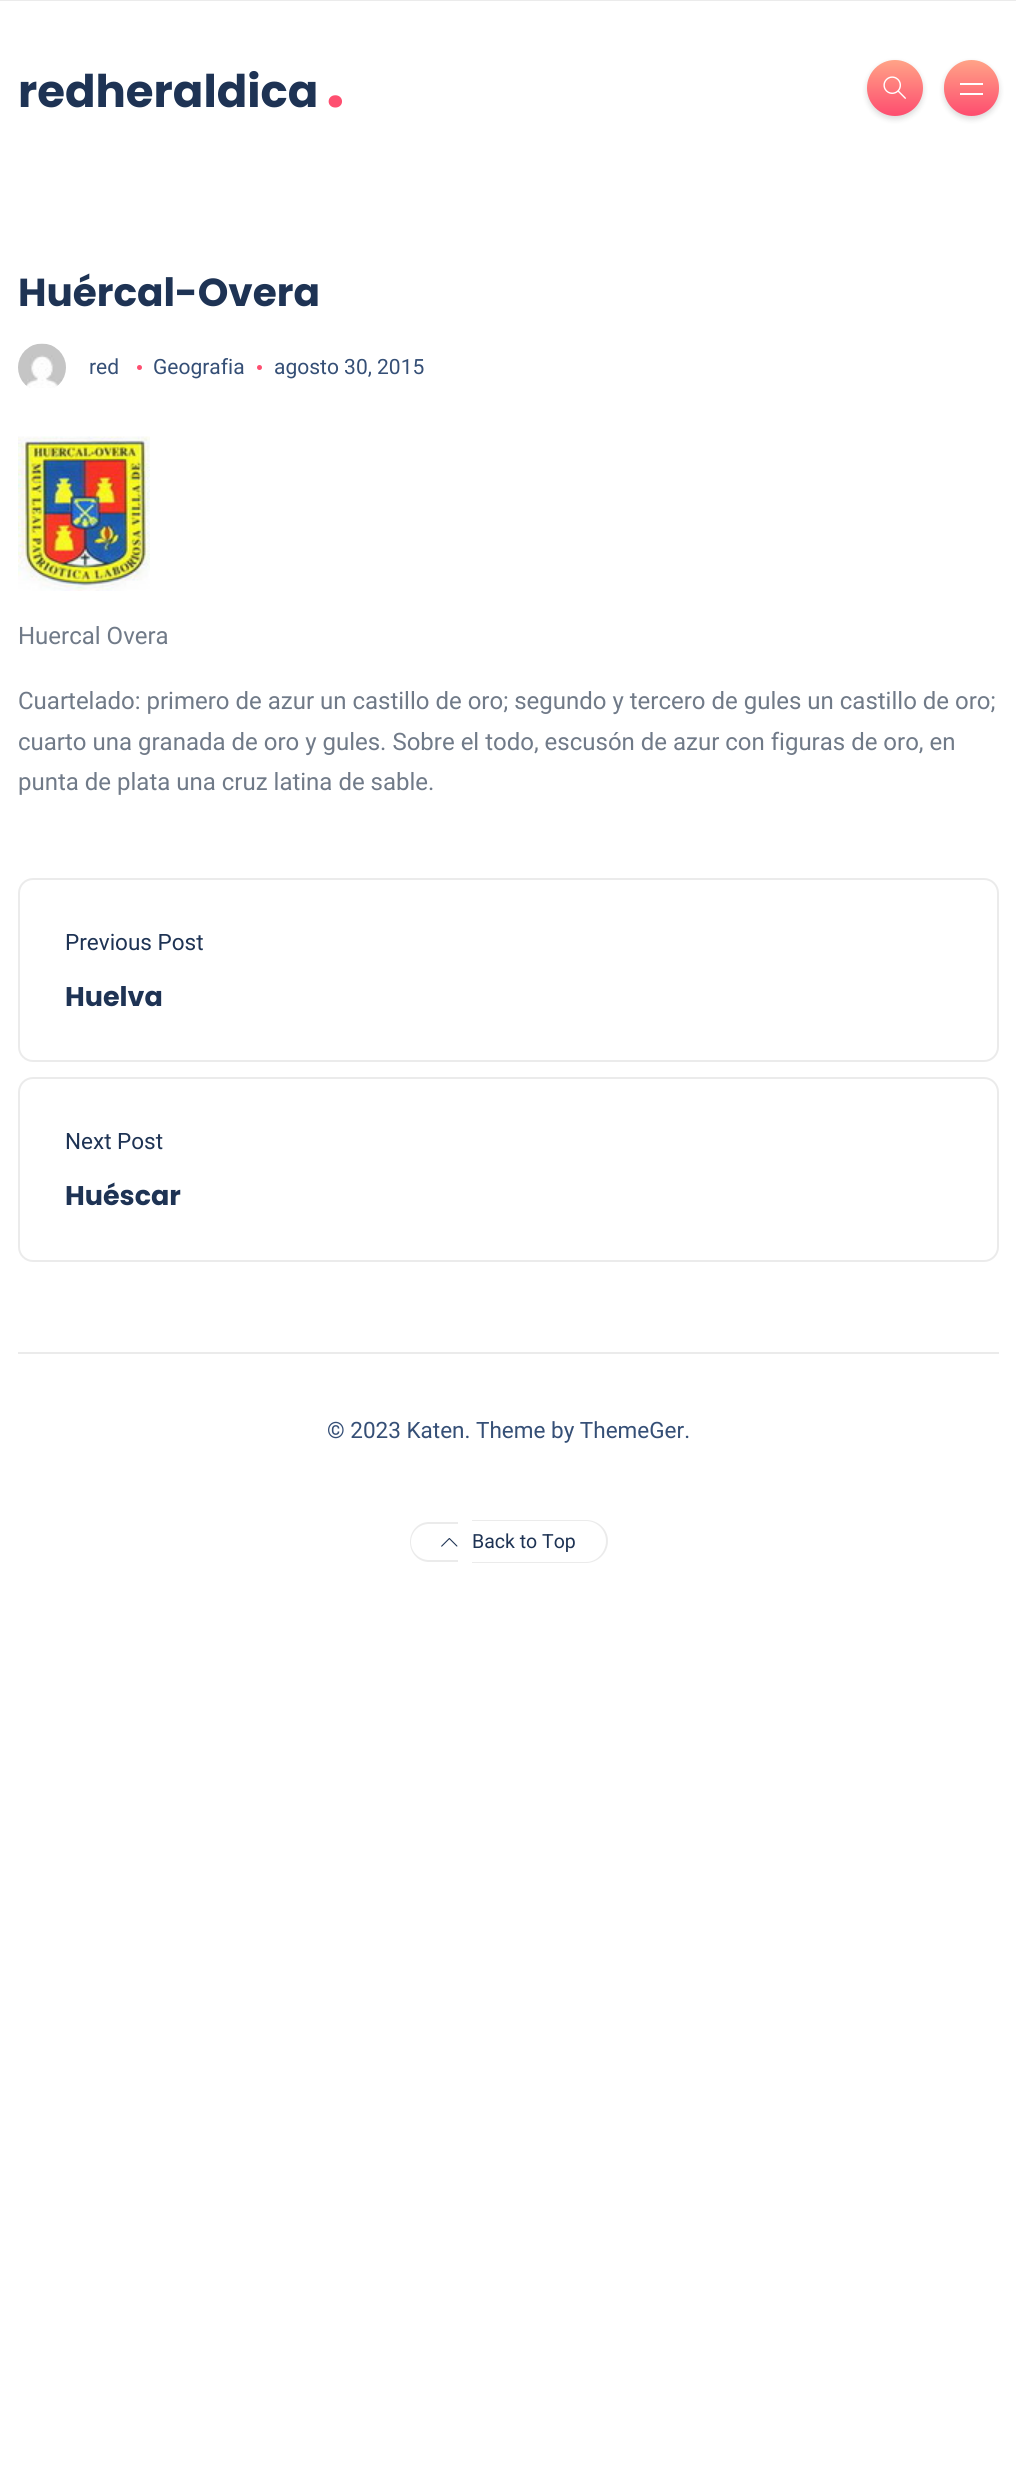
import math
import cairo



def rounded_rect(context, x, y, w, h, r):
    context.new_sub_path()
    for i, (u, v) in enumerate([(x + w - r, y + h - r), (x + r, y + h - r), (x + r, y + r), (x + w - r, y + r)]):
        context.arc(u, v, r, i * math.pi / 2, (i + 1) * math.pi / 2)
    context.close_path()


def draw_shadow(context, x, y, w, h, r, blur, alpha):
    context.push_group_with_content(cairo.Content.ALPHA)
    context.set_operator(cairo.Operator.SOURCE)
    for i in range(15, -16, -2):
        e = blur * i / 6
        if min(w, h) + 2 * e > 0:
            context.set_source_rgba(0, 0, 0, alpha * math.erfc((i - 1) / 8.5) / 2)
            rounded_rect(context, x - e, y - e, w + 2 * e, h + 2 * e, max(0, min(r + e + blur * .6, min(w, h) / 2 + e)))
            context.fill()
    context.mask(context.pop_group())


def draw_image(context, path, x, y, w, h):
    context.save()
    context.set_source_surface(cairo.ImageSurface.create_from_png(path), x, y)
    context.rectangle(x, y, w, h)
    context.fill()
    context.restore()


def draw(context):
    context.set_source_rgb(1, 1, 1)
    context.paint()
    context.set_source_rgb(235 / 255, 235 / 255, 235 / 255)
    context.rectangle(0, 0, 1016, 1)
    context.fill()
    context.set_source_rgb(0, 0, 0)
    draw_shadow(context, 867, 63, 56, 56, 28, 3, 0.15)
    gradient = cairo.LinearGradient(895, 171, 895, 60)
    gradient.add_color_stop_rgba(0, 1, 163 / 255, 135 / 255, 1)
    gradient.add_color_stop_rgba(0.51, 254 / 255, 79 / 255, 112 / 255, 1)
    gradient.add_color_stop_rgba(1, 1, 163 / 255, 135 / 255, 1)
    context.set_source(gradient)
    context.arc(895, 88, 28, 0, 2 * math.pi)
    context.fill()
    draw_image(context, "images/1.png", 883, 76, 23, 23)
    context.set_source_rgb(0, 0, 0)
    draw_shadow(context, 944, 63, 55, 56, 27.5, 3, 0.15)
    gradient = cairo.LinearGradient(971, 171, 971, 60)
    gradient.add_color_stop_rgba(0, 1, 163 / 255, 135 / 255, 1)
    gradient.add_color_stop_rgba(0.51, 254 / 255, 79 / 255, 112 / 255, 1)
    gradient.add_color_stop_rgba(1, 1, 163 / 255, 135 / 255, 1)
    context.set_source(gradient)
    rounded_rect(context, 944, 60, 55, 56, 27.5)
    context.fill()
    context.set_source_rgb(1, 1, 1)
    context.rectangle(960, 83, 23, 2)
    context.fill()
    context.rectangle(960, 93, 23, 2)
    context.fill()
    draw_image(context, "images/2.png", 18, 343, 48, 45)
    context.set_source_rgb(254 / 255, 79 / 255, 112 / 255)
    context.arc(139.5, 367.5, 2.5, 0, 2 * math.pi)
    context.fill()
    context.arc(259.5, 367.5, 2.5, 0, 2 * math.pi)
    context.fill()
    draw_image(context, "images/3.png", 18, 436, 132, 155)
    rounded_rect(context, 19, 879, 979, 182, 14)
    context.set_source_rgb(235 / 255, 235 / 255, 235 / 255)
    context.stroke()
    rounded_rect(context, 19, 1078, 979, 183, 14)
    context.stroke()
    context.rectangle(18, 1352, 981, 2)
    context.fill()
    context.set_fill_rule(cairo.FillRule.EVEN_ODD)
    context.new_path()
    context.move_to(429, 1522)
    context.line_to(458, 1522)
    context.line_to(458, 1562)
    context.line_to(429, 1562)
    context.curve_to(418, 1562, 410, 1553, 410, 1542)
    context.curve_to(410, 1531, 418, 1522, 429, 1522)
    context.close_path()
    context.move_to(429, 1524)
    context.line_to(458, 1524)
    context.line_to(458, 1560)
    context.line_to(429, 1560)
    context.curve_to(419, 1560, 411, 1552, 411, 1542)
    context.curve_to(411, 1532, 419, 1524, 429, 1524)
    context.close_path()
    context.fill()
    draw_image(context, "images/4.png", 441, 1538, 17, 9)
    context.new_path()
    context.move_to(472, 1520)
    context.line_to(586, 1520)
    context.curve_to(598, 1520, 608, 1529, 608, 1541)
    context.curve_to(608, 1553, 598, 1563, 586, 1563)
    context.line_to(472, 1563)
    context.close_path()
    context.move_to(472, 1521)
    context.line_to(586, 1521)
    context.curve_to(597, 1521, 606, 1530, 606, 1541)
    context.curve_to(606, 1552, 597, 1562, 586, 1562)
    context.line_to(472, 1562)
    context.close_path()
    context.fill()
    context.select_font_face("Poppins", cairo.FontSlant.NORMAL, cairo.FontWeight.BOLD)
    context.set_font_size(45)
    context.set_source_rgb(30 / 255, 51 / 255, 84 / 255)
    context.move_to(18, 107)
    context.show_text("redheraldica")
    context.set_font_size(66)
    context.set_source_rgb(254 / 255, 79 / 255, 112 / 255)
    context.move_to(326, 107)
    context.show_text(".")
    context.set_font_size(39)
    context.set_source_rgb(30 / 255, 51 / 255, 84 / 255)
    context.move_to(18, 306)
    context.show_text("Huércal-Overa")
    context.select_font_face("Roboto")
    context.set_font_size(21)
    context.set_source_rgb(53 / 255, 79 / 255, 118 / 255)
    context.move_to(89, 374)
    context.show_text("red")
    context.move_to(153, 374)
    context.show_text("Geografia")
    context.move_to(274, 374)
    context.show_text("agosto 30, 2015")
    context.set_font_size(24)
    context.set_source_rgb(112 / 255, 122 / 255, 136 / 255)
    context.move_to(18, 644)
    context.show_text("Huercal Overa")
    context.move_to(18, 709)
    context.show_text("Cuartelado: primero de azur un castillo de oro; segundo y tercero de gules un castillo de oro;")
    context.move_to(18, 750)
    context.show_text("cuarto una granada de oro y gules. Sobre el todo, escusón de azur con figuras de oro, en")
    context.move_to(18, 790)
    context.show_text("punta de plata una cruz latina de sable.")
    context.set_font_size(22.5)
    context.set_source_rgb(30 / 255, 51 / 255, 84 / 255)
    context.move_to(65, 950)
    context.show_text("Previous Post")
    context.select_font_face("Poppins", cairo.FontSlant.NORMAL, cairo.FontWeight.BOLD)
    context.set_font_size(27)
    context.move_to(65, 1006)
    context.show_text("Huelva")
    context.select_font_face("Roboto")
    context.set_font_size(22.5)
    context.move_to(65, 1149)
    context.show_text("Next Post")
    context.select_font_face("Poppins", cairo.FontSlant.NORMAL, cairo.FontWeight.BOLD)
    context.set_font_size(27)
    context.move_to(65, 1205)
    context.show_text("Huéscar")
    context.select_font_face("Roboto")
    context.set_font_size(22.5)
    context.set_source_rgb(53 / 255, 79 / 255, 118 / 255)
    context.move_to(327, 1438)
    context.show_text("© 2023 Katen. Theme by ThemeGer.")
    context.set_font_size(19.5)
    context.set_source_rgb(30 / 255, 51 / 255, 84 / 255)
    context.move_to(472, 1548)
    context.show_text("Back to Top")


surface = cairo.ImageSurface(cairo.Format.RGB24, 1016, 2492)
context = cairo.Context(surface)
options = cairo.FontOptions()
options.set_hint_metrics(cairo.HintMetrics.OFF)
options.set_hint_style(cairo.HintStyle.NONE)
context.set_font_options(options)
context.set_miter_limit(4)
draw(context)
surface.write_to_png("out.png")
